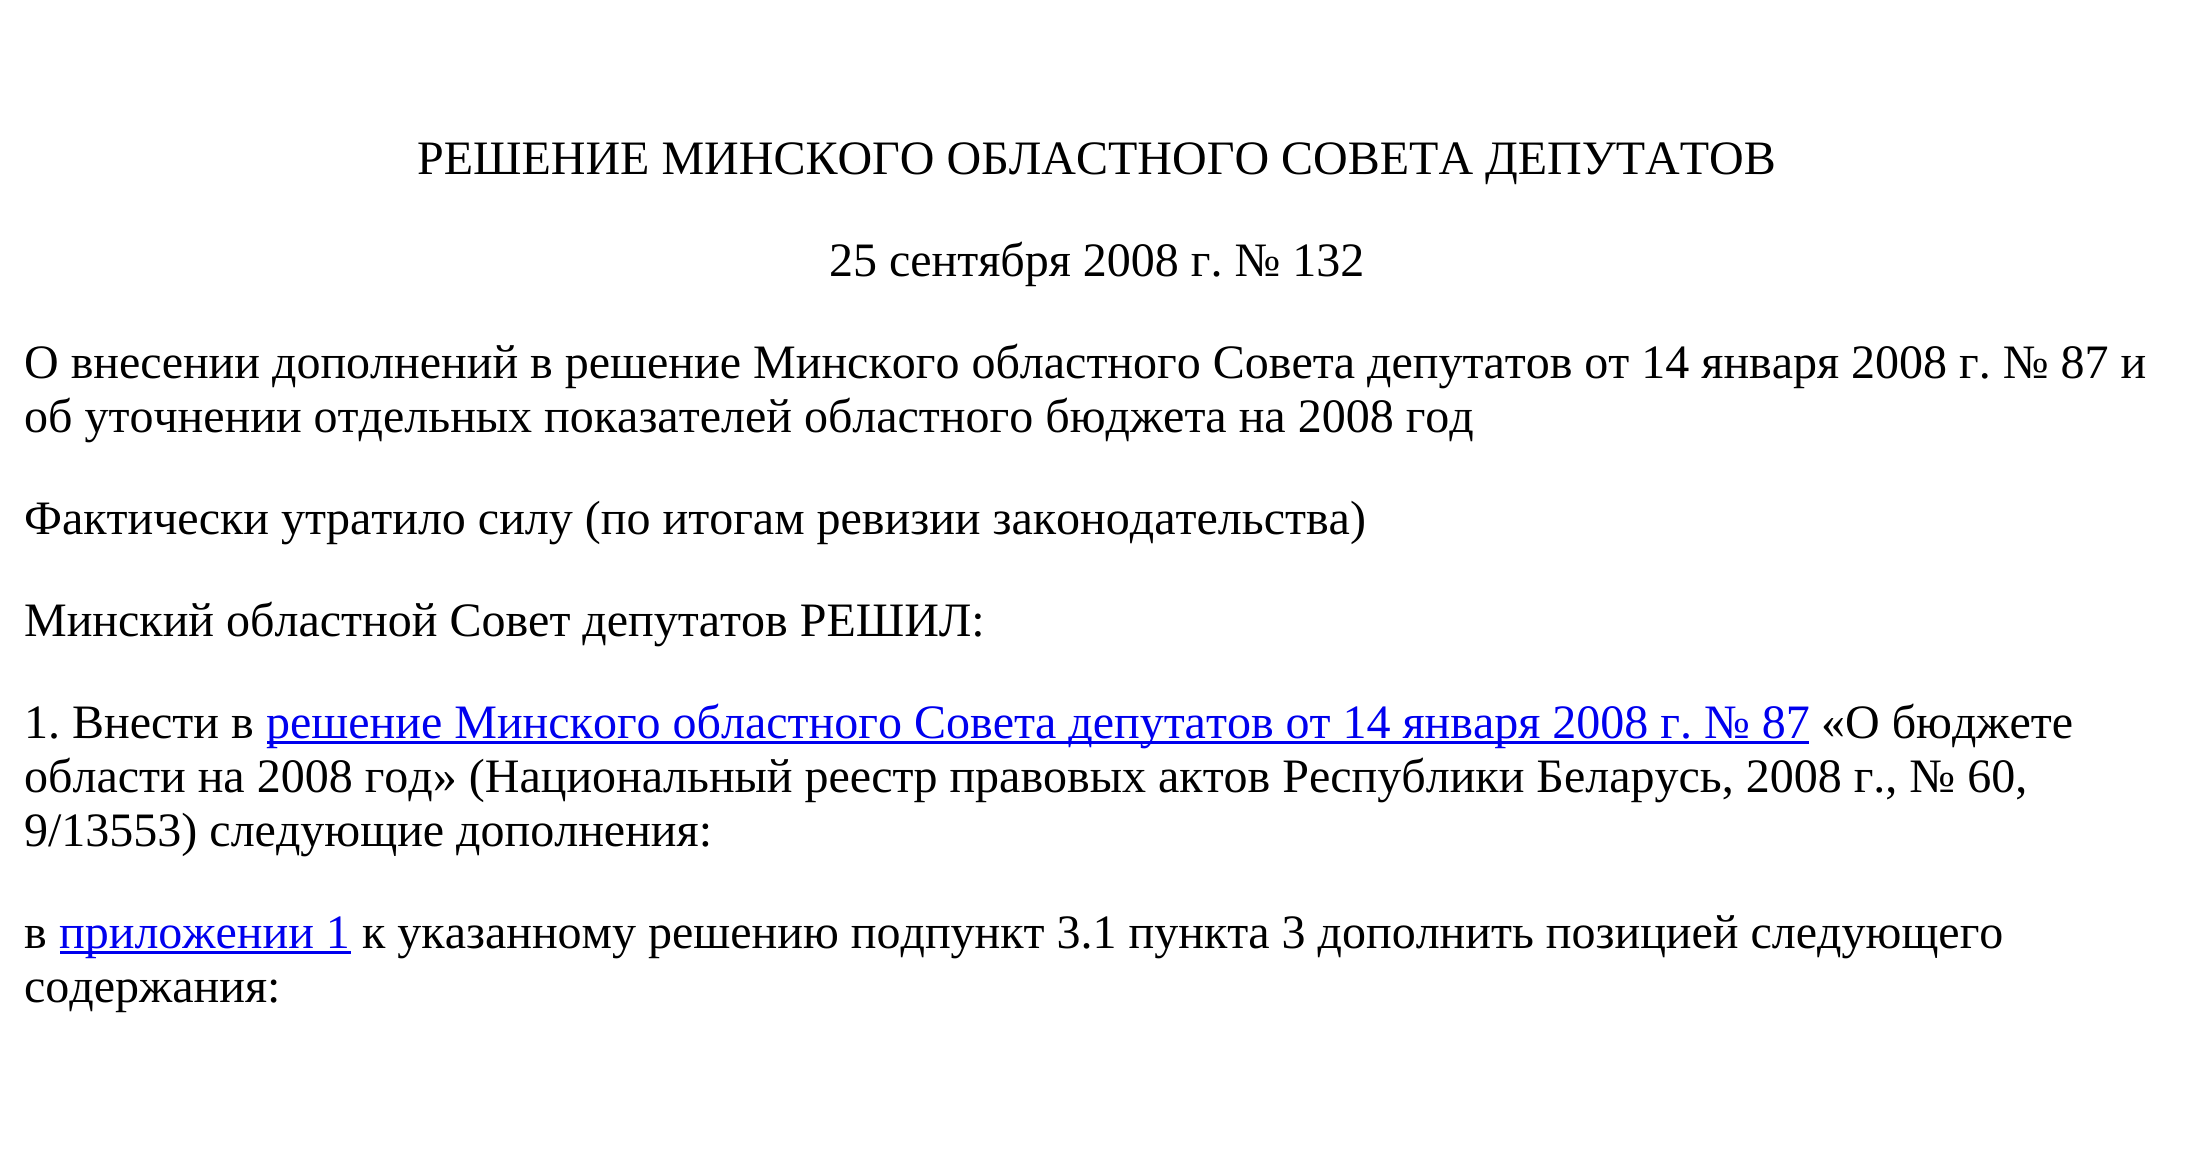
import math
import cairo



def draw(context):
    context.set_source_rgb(1, 1, 1)
    context.paint()
    context.set_source_rgb(0, 0, 238 / 255)
    context.rectangle(267, 741, 1542, 3)
    context.fill()
    context.rectangle(60, 951, 291, 3)
    context.fill()
    context.select_font_face("Liberation Serif")
    context.set_font_size(48)
    context.set_source_rgb(0, 0, 0)
    context.move_to(417, 174)
    context.show_text("РЕШЕНИЕ МИНСКОГО ОБЛАСТНОГО СОВЕТА ДЕПУТАТОВ")
    context.move_to(829, 276)
    context.show_text("25 сентября 2008 г. № 132")
    context.move_to(24, 378)
    context.show_text("О внесении дополнений в решение Минского областного Совета депутатов от 14 января 2008 г. № 87 и")
    context.move_to(24, 432)
    context.show_text("об уточнении отдельных показателей областного бюджета на 2008 год")
    context.move_to(24, 534)
    context.show_text("Фактически утратило силу (по итогам ревизии законодательства)")
    context.move_to(24, 636)
    context.show_text("Минский областной Совет депутатов РЕШИЛ:")
    context.move_to(24, 738)
    context.show_text("1. Внести в")
    context.set_source_rgb(0, 0, 238 / 255)
    context.move_to(266, 738)
    context.show_text("решение Минского областного Совета депутатов от 14 января 2008 г. № 87")
    context.set_source_rgb(0, 0, 0)
    context.move_to(1821, 738)
    context.show_text("«О бюджете")
    context.move_to(24, 792)
    context.show_text("области на 2008 год» (Национальный реестр правовых актов Республики Беларусь, 2008 г., № 60,")
    context.move_to(24, 846)
    context.show_text("9/13553) следующие дополнения:")
    context.move_to(24, 948)
    context.show_text("в")
    context.set_source_rgb(0, 0, 238 / 255)
    context.move_to(59, 948)
    context.show_text("приложении 1")
    context.set_source_rgb(0, 0, 0)
    context.move_to(362, 948)
    context.show_text("к указанному решению подпункт 3.1 пункта 3 дополнить позицией следующего")
    context.move_to(24, 1002)
    context.show_text("содержания:")


surface = cairo.ImageSurface(cairo.Format.RGB24, 2192, 1155)
context = cairo.Context(surface)
options = cairo.FontOptions()
options.set_hint_metrics(cairo.HintMetrics.OFF)
options.set_hint_style(cairo.HintStyle.NONE)
context.set_font_options(options)
context.set_miter_limit(4)
draw(context)
surface.write_to_png("out.png")
